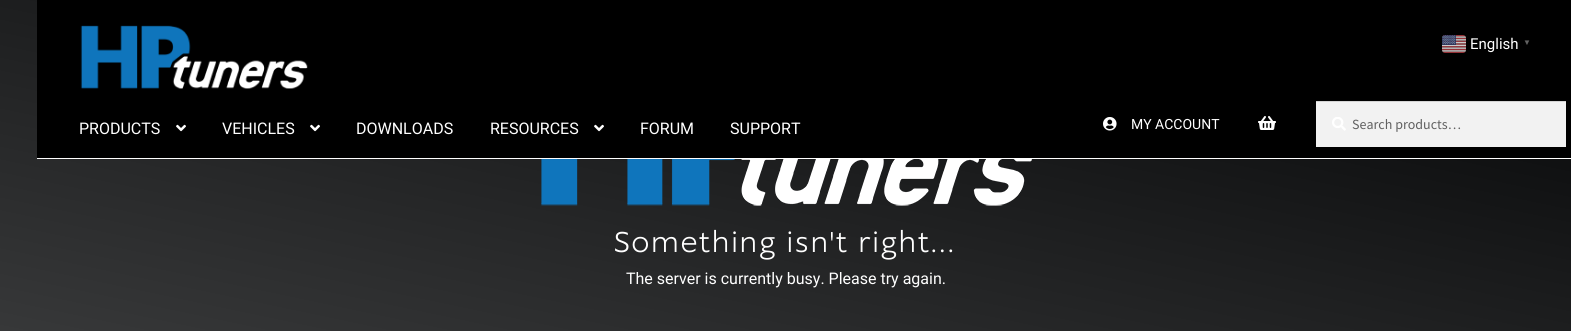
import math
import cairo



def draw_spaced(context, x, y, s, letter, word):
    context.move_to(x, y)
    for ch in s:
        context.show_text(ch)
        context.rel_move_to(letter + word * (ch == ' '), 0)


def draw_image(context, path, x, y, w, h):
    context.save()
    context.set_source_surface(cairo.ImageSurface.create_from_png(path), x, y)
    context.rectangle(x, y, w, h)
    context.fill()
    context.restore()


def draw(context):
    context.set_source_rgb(1, 1, 1)
    context.paint()
    gradient = cairo.LinearGradient(852, -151, 719, 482)
    gradient.add_color_stop_rgba(0, 3 / 255, 4 / 255, 5 / 255, 1)
    gradient.add_color_stop_rgba(1, 55 / 255, 56 / 255, 57 / 255, 1)
    context.set_source(gradient)
    context.rectangle(0, 0, 1571, 331)
    context.fill()
    context.set_source_rgb(0, 0, 0)
    context.rectangle(37, 0, 1534, 158)
    context.fill()
    draw_image(context, "images/1.png", 1442, 35, 24, 18)
    context.set_source_rgb(1, 1, 1)
    context.rectangle(37, 158, 1534, 1)
    context.fill()
    draw_image(context, "images/2.png", 80, 25, 228, 64)
    draw_image(context, "images/3.png", 176, 124, 10, 8)
    draw_image(context, "images/3.png", 310, 124, 10, 8)
    draw_image(context, "images/3.png", 594, 124, 10, 8)
    draw_image(context, "images/4.png", 1103, 117, 14, 14)
    draw_image(context, "images/5.png", 1258, 116, 18, 14)
    context.set_source_rgb(242 / 255, 242 / 255, 242 / 255)
    context.rectangle(1316, 102, 250, 45)
    context.fill()
    draw_image(context, "images/6.png", 1332, 117, 14, 14)
    context.set_source_rgb(212 / 255, 212 / 255, 212 / 255)
    context.rectangle(1316, 101, 250, 1)
    context.fill()
    draw_image(context, "images/7.png", 541, 159, 491, 47)
    context.select_font_face("Roboto")
    context.set_font_size(15)
    context.set_source_rgb(1, 1, 1)
    context.move_to(1470, 49)
    context.show_text("English")
    context.select_font_face("Liberation Sans", cairo.FontSlant.NORMAL, cairo.FontWeight.BOLD)
    context.set_font_size(8)
    context.set_source_rgb(97 / 255, 97 / 255, 97 / 255)
    context.move_to(1523, 45)
    context.show_text("▼")
    context.select_font_face("Roboto")
    context.set_font_size(16)
    context.set_source_rgb(1, 1, 1)
    context.move_to(79, 134)
    context.show_text("PRODUCTS")
    context.move_to(222, 134)
    context.show_text("VEHICLES")
    context.move_to(356, 134)
    context.show_text("DOWNLOADS")
    context.move_to(490, 134)
    context.show_text("RESOURCES")
    context.move_to(640, 134)
    context.show_text("FORUM")
    context.move_to(730, 134)
    context.show_text("SUPPORT")
    context.set_font_size(14)
    context.move_to(1131, 129)
    context.show_text("MY ACCOUNT")
    context.select_font_face("Source Sans Pro")
    context.set_source_rgb(97 / 255, 97 / 255, 97 / 255)
    context.move_to(1352, 129)
    context.show_text("Search products…")
    context.select_font_face("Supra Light")
    context.set_font_size(30)
    context.set_source_rgb(1, 1, 1)
    draw_spaced(context, 614, 252, "Something isn't right...", 2, 0)
    context.select_font_face("Roboto")
    context.set_font_size(16)
    context.move_to(626, 284)
    context.show_text("The server is currently busy. Please try again.")


surface = cairo.ImageSurface(cairo.Format.RGB24, 1571, 331)
context = cairo.Context(surface)
options = cairo.FontOptions()
options.set_hint_metrics(cairo.HintMetrics.OFF)
options.set_hint_style(cairo.HintStyle.NONE)
context.set_font_options(options)
context.set_miter_limit(4)
draw(context)
surface.write_to_png("out.png")
